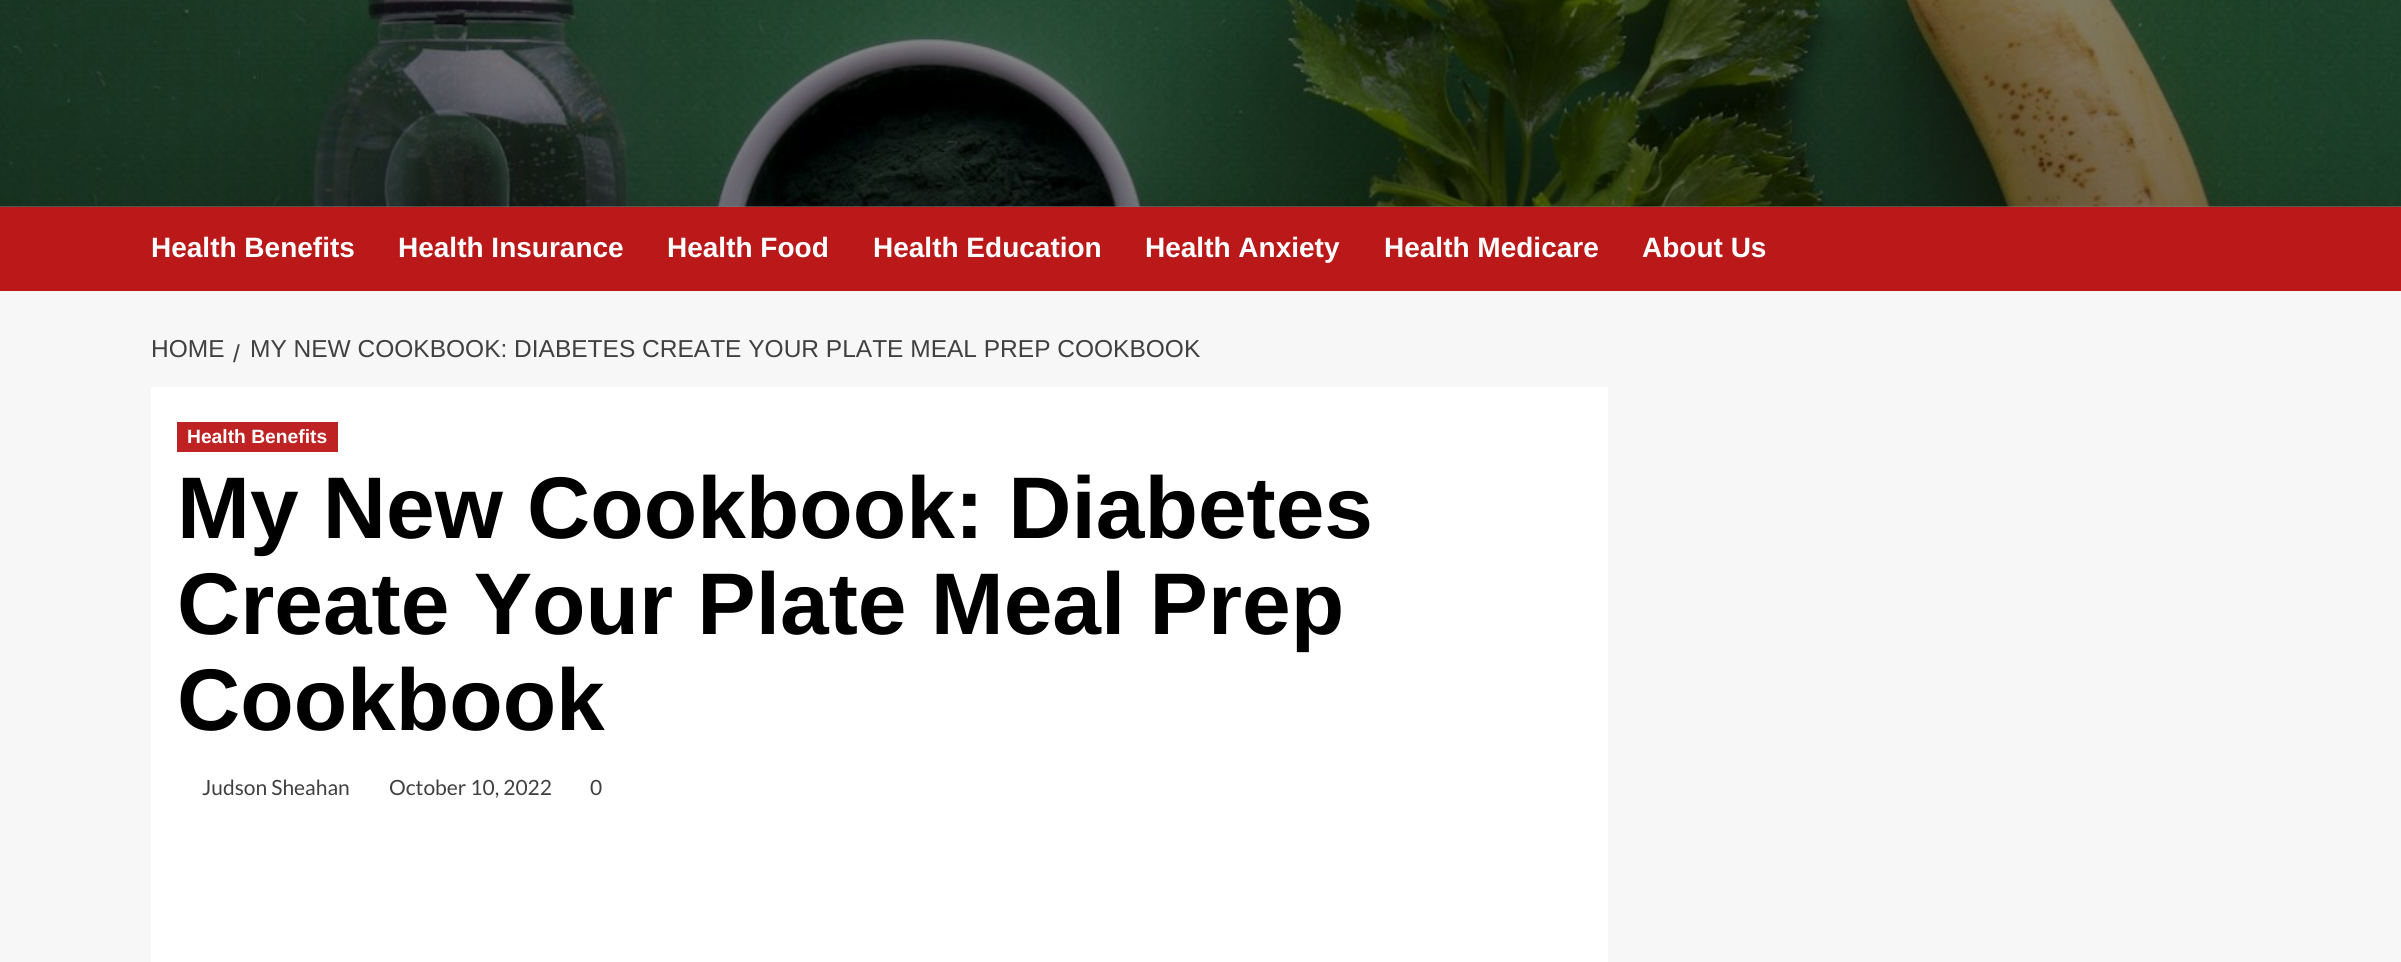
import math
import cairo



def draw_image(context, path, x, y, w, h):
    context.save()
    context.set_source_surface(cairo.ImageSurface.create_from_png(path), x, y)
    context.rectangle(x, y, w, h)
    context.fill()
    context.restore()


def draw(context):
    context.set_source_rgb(247 / 255, 247 / 255, 247 / 255)
    context.paint()
    context.set_source_rgb(124 / 255, 124 / 255, 124 / 255)
    context.rectangle(0, 206, 2401, 1)
    context.fill()
    draw_image(context, "images/1.png", 0, 0, 2401, 207)
    context.set_source_rgb(187 / 255, 25 / 255, 25 / 255)
    context.rectangle(0, 207, 2401, 84)
    context.fill()
    context.set_source_rgb(1, 1, 1)
    context.rectangle(151, 387, 1457, 575)
    context.fill()
    context.set_source_rgb(190 / 255, 34 / 255, 34 / 255)
    context.rectangle(177, 422, 161, 30)
    context.fill()
    context.select_font_face("Liberation Sans", cairo.FontSlant.NORMAL, cairo.FontWeight.BOLD)
    context.set_font_size(28)
    context.set_source_rgb(1, 1, 1)
    context.move_to(151, 257)
    context.show_text("Health Benefits")
    context.move_to(398, 257)
    context.show_text("Health Insurance")
    context.move_to(667, 257)
    context.show_text("Health Food")
    context.move_to(873, 257)
    context.show_text("Health Education")
    context.move_to(1145, 257)
    context.show_text("Health Anxiety")
    context.move_to(1384, 257)
    context.show_text("Health Medicare")
    context.move_to(1642, 257)
    context.show_text("About Us")
    context.select_font_face("Liberation Sans")
    context.set_font_size(24.5)
    context.set_source_rgb(64 / 255, 64 / 255, 64 / 255)
    context.move_to(151, 357)
    context.show_text("HOME")
    context.move_to(233, 362)
    context.show_text("/")
    context.move_to(250, 357)
    context.show_text("MY NEW COOKBOOK: DIABETES CREATE YOUR PLATE MEAL PREP COOKBOOK")
    context.select_font_face("Liberation Sans", cairo.FontSlant.NORMAL, cairo.FontWeight.BOLD)
    context.set_font_size(19.25)
    context.set_source_rgb(1, 1, 1)
    context.move_to(187, 443)
    context.show_text("Health Benefits")
    context.set_font_size(87.5)
    context.set_source_rgb(0, 0, 0)
    context.move_to(177, 538)
    context.show_text("My New Cookbook: Diabetes")
    context.move_to(177, 634)
    context.show_text("Create Your Plate Meal Prep")
    context.move_to(177, 730)
    context.show_text("Cookbook")
    context.select_font_face("Lato")
    context.set_font_size(21)
    context.set_source_rgb(64 / 255, 64 / 255, 64 / 255)
    context.move_to(202, 795)
    context.show_text("Judson Sheahan")
    context.move_to(389, 795)
    context.show_text("October 10, 2022")
    context.move_to(590, 795)
    context.show_text("0")


surface = cairo.ImageSurface(cairo.Format.RGB24, 2401, 962)
context = cairo.Context(surface)
options = cairo.FontOptions()
options.set_hint_metrics(cairo.HintMetrics.OFF)
options.set_hint_style(cairo.HintStyle.NONE)
context.set_font_options(options)
context.set_miter_limit(4)
draw(context)
surface.write_to_png("out.png")
